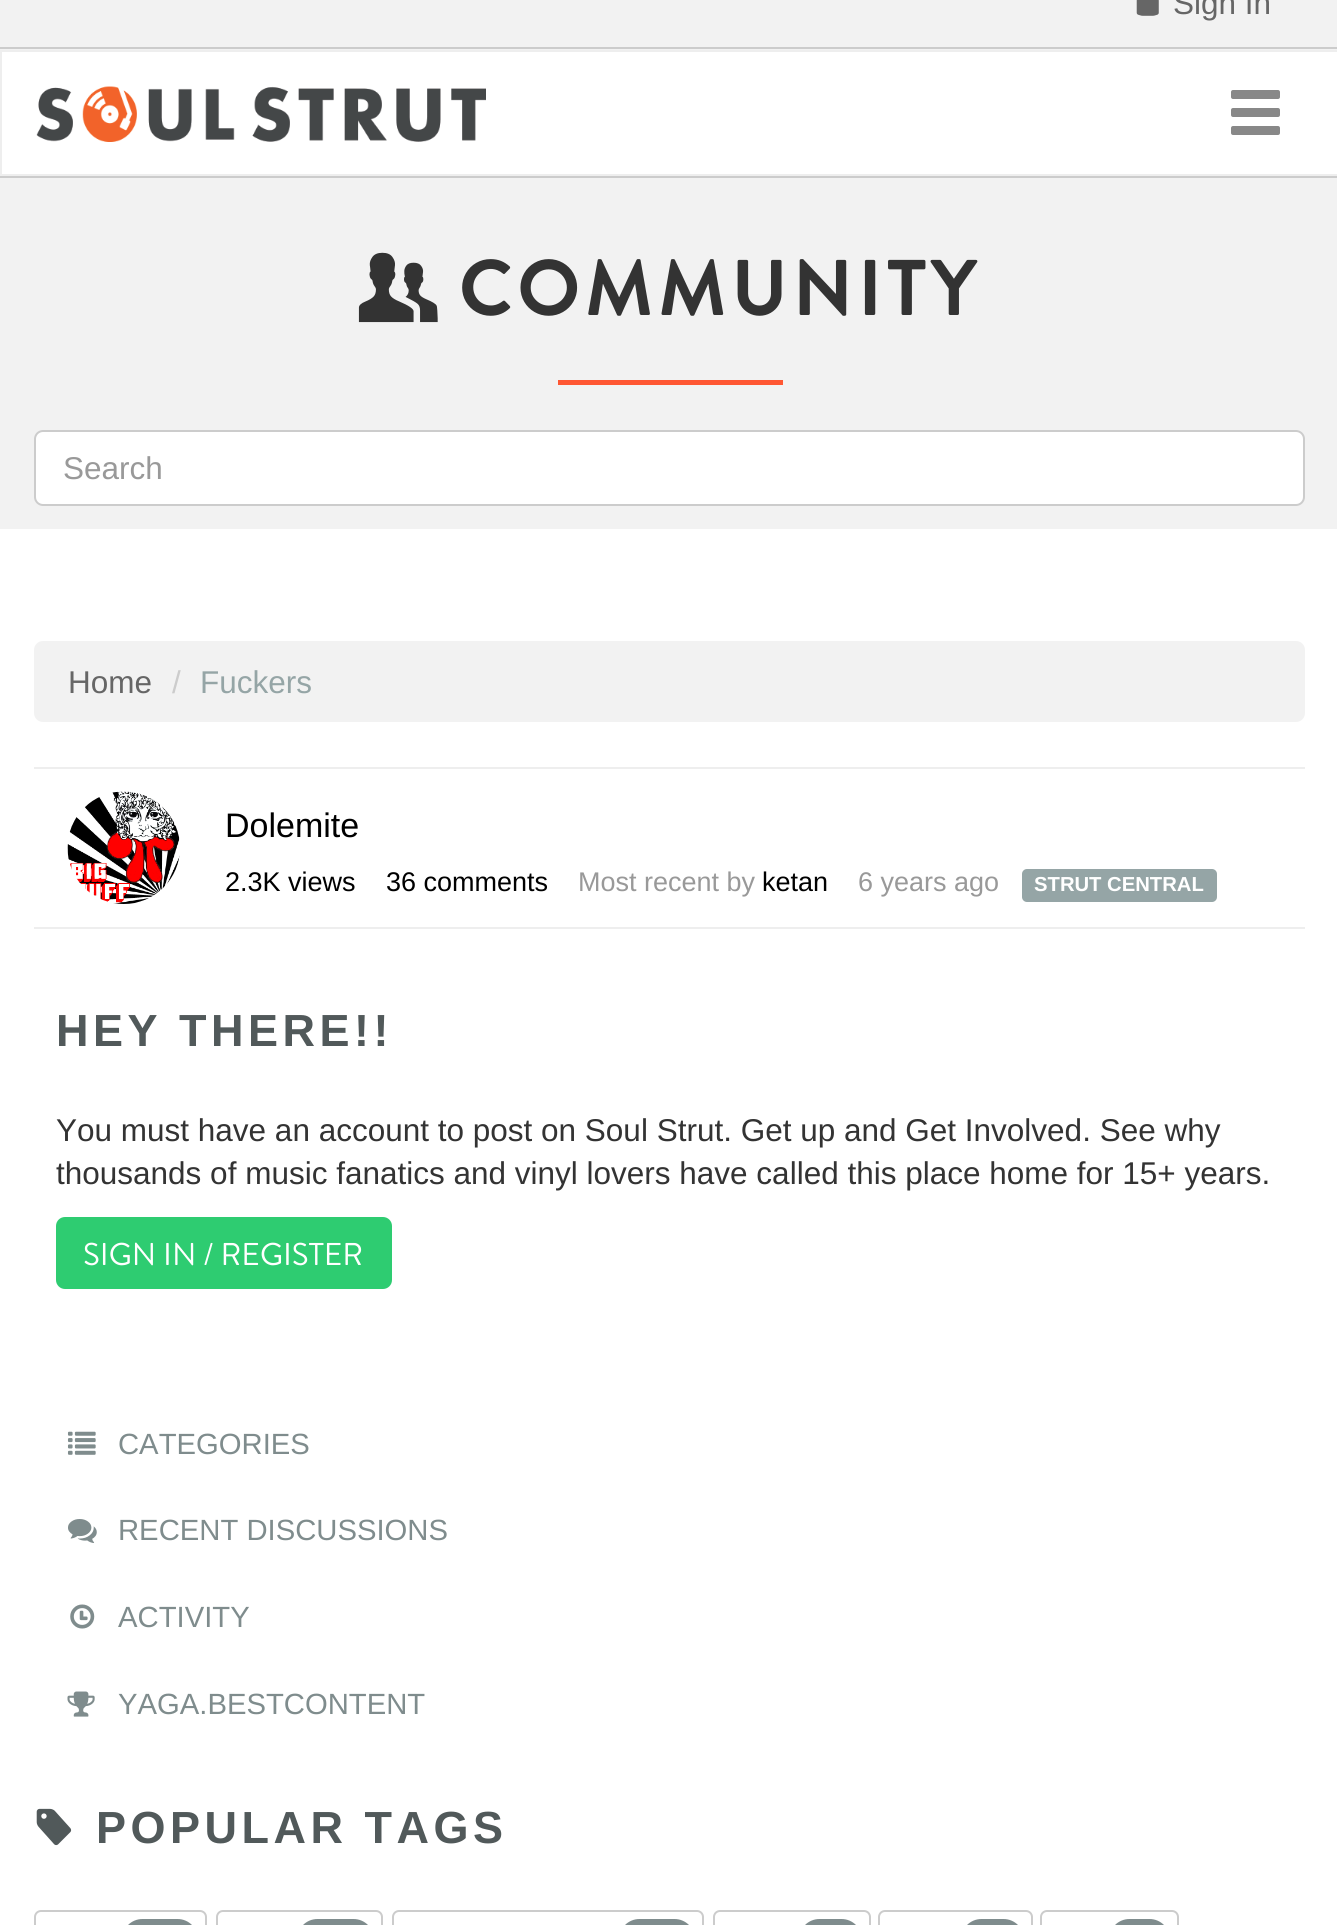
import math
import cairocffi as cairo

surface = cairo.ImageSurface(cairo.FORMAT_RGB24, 1337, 1925)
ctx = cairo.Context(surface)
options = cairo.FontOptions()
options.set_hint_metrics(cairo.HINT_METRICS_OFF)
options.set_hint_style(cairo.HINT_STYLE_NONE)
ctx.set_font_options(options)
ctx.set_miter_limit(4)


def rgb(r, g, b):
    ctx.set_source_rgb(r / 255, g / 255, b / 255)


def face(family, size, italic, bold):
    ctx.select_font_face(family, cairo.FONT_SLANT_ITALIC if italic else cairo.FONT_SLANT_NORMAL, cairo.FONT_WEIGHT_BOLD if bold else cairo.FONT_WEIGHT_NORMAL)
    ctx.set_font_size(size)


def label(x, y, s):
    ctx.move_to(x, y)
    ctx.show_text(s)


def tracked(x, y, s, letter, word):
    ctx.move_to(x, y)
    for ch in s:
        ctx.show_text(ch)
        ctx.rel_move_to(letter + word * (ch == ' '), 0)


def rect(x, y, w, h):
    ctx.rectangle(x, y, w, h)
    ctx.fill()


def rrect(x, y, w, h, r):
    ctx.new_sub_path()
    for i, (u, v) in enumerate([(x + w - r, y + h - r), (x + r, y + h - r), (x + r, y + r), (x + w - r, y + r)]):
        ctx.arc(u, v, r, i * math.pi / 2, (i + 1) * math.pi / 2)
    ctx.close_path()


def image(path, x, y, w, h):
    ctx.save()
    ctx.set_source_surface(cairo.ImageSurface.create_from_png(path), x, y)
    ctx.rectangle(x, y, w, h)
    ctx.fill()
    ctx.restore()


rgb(255, 255, 255)
ctx.paint()
rgb(242, 242, 242)
rect(0, 0, 1337, 50)
rgb(204, 204, 204)
rect(0, 47, 1337, 2)
image('image0.png', 1136, 0, 23, 16)
face('Liberation Sans', 31.5, 0, 0)
rgb(102, 102, 102)
label(1173, 14, 'Sign In')
ctx.rectangle(1, 51, 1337, 124)
rgb(238, 238, 238)
ctx.stroke()
image('image1.png', 36, 86, 450, 56)
rgb(136, 136, 136)
rrect(1231, 90, 49, 9, 2)
ctx.fill()
rrect(1231, 108, 49, 9, 2)
ctx.fill()
rrect(1231, 126, 49, 9, 2)
ctx.fill()
rgb(242, 242, 242)
rect(0, 178, 1337, 351)
rgb(204, 204, 204)
rect(0, 176, 1337, 2)
image('image2.png', 358, 252, 80, 71)
face('Brandon Grotesque', 78.75, 0, 1)
rgb(51, 51, 51)
tracked(459, 315, 'COMMUNITY', 4.5, 0)
rgb(255, 87, 51)
rect(558, 380, 225, 5)
rgb(255, 255, 255)
rrect(35, 431, 1269, 74, 8)
ctx.fill_preserve()
rgb(204, 204, 204)
ctx.stroke()
face('Liberation Sans', 31.5, 0, 0)
rgb(153, 153, 153)
label(63, 479, 'Search')
rgb(242, 242, 242)
rrect(34, 641, 1271, 81, 9)
ctx.fill()
rgb(102, 102, 102)
label(68, 693, 'Home')
rgb(204, 204, 204)
label(172, 693, '/')
rgb(149, 165, 166)
label(200, 693, 'Fuckers')
rgb(238, 238, 238)
rect(34, 767, 1271, 2)
rect(34, 927, 1271, 2)
image('image3.png', 67, 791, 113, 113)
face('Liberation Sans', 34, 0, 0)
rgb(0, 0, 0)
label(225, 837, 'Dolemite')
face('Liberation Sans', 27, 0, 0)
label(225, 891, '2.3K views')
label(386, 891, '36 comments')
rgb(153, 153, 153)
label(578, 891, 'Most recent by')
rgb(0, 0, 0)
label(762, 891, 'ketan')
rgb(153, 153, 153)
label(858, 891, '6 years ago')
rgb(149, 165, 166)
rrect(1022, 869, 195, 33, 5)
ctx.fill()
face('Liberation Sans', 20.25, 0, 1)
rgb(255, 255, 255)
label(1034, 891, 'STRUT CENTRAL')
face('Liberation Sans', 45, 0, 1)
rgb(81, 89, 90)
tracked(56, 1046, 'HEY THERE!!', 4.5, 0)
face('Liberation Sans', 31.5, 0, 0)
rgb(51, 51, 51)
label(56, 1141, 'You must have an account to post on Soul Strut. Get up and Get Involved. See why')
label(56, 1184, 'thousands of music fanatics and vinyl lovers have called this place home for 15+ years.')
rgb(46, 204, 113)
rrect(56, 1217, 336, 72, 9)
ctx.fill()
face('Brandon Grotesque', 31.5, 0, 0)
rgb(255, 255, 255)
label(83, 1265, 'SIGN IN / REGISTER')
image('image4.png', 67, 1431, 29, 24)
face('Liberation Sans', 29.25, 0, 0)
rgb(127, 140, 141)
label(118, 1454, 'CATEGORIES')
image('image5.png', 68, 1519, 29, 24)
label(118, 1540, 'RECENT DISCUSSIONS')
image('image6.png', 70, 1604, 25, 25)
label(118, 1627, 'ACTIVITY')
image('image7.png', 67, 1691, 28, 26)
label(118, 1714, 'YAGA.BESTCONTENT')
image('image8.png', 36, 1808, 36, 38)
face('Liberation Sans', 45, 0, 1)
rgb(81, 89, 90)
tracked(96, 1843, 'POPULAR TAGS', 4.5, 0)
rrect(35, 1911, 171, 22, 6)
rgb(204, 204, 204)
ctx.stroke()
rgb(127, 140, 141)
rrect(122, 1919, 76, 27, 20.5)
ctx.fill()
rrect(217, 1911, 165, 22, 6)
rgb(204, 204, 204)
ctx.stroke()
rgb(127, 140, 141)
rrect(297, 1919, 77, 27, 20.5)
ctx.fill()
rrect(393, 1911, 310, 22, 6)
rgb(204, 204, 204)
ctx.stroke()
rgb(127, 140, 141)
rrect(619, 1919, 76, 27, 20.5)
ctx.fill()
rrect(714, 1911, 156, 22, 6)
rgb(204, 204, 204)
ctx.stroke()
rgb(127, 140, 141)
rrect(799, 1919, 63, 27, 20.5)
ctx.fill()
rrect(879, 1911, 153, 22, 6)
rgb(204, 204, 204)
ctx.stroke()
rgb(127, 140, 141)
rrect(961, 1919, 63, 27, 20.5)
ctx.fill()
rrect(1041, 1911, 137, 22, 6)
rgb(204, 204, 204)
ctx.stroke()
rgb(127, 140, 141)
rrect(1109, 1919, 61, 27, 20.5)
ctx.fill()
surface.write_to_png('render.png')
